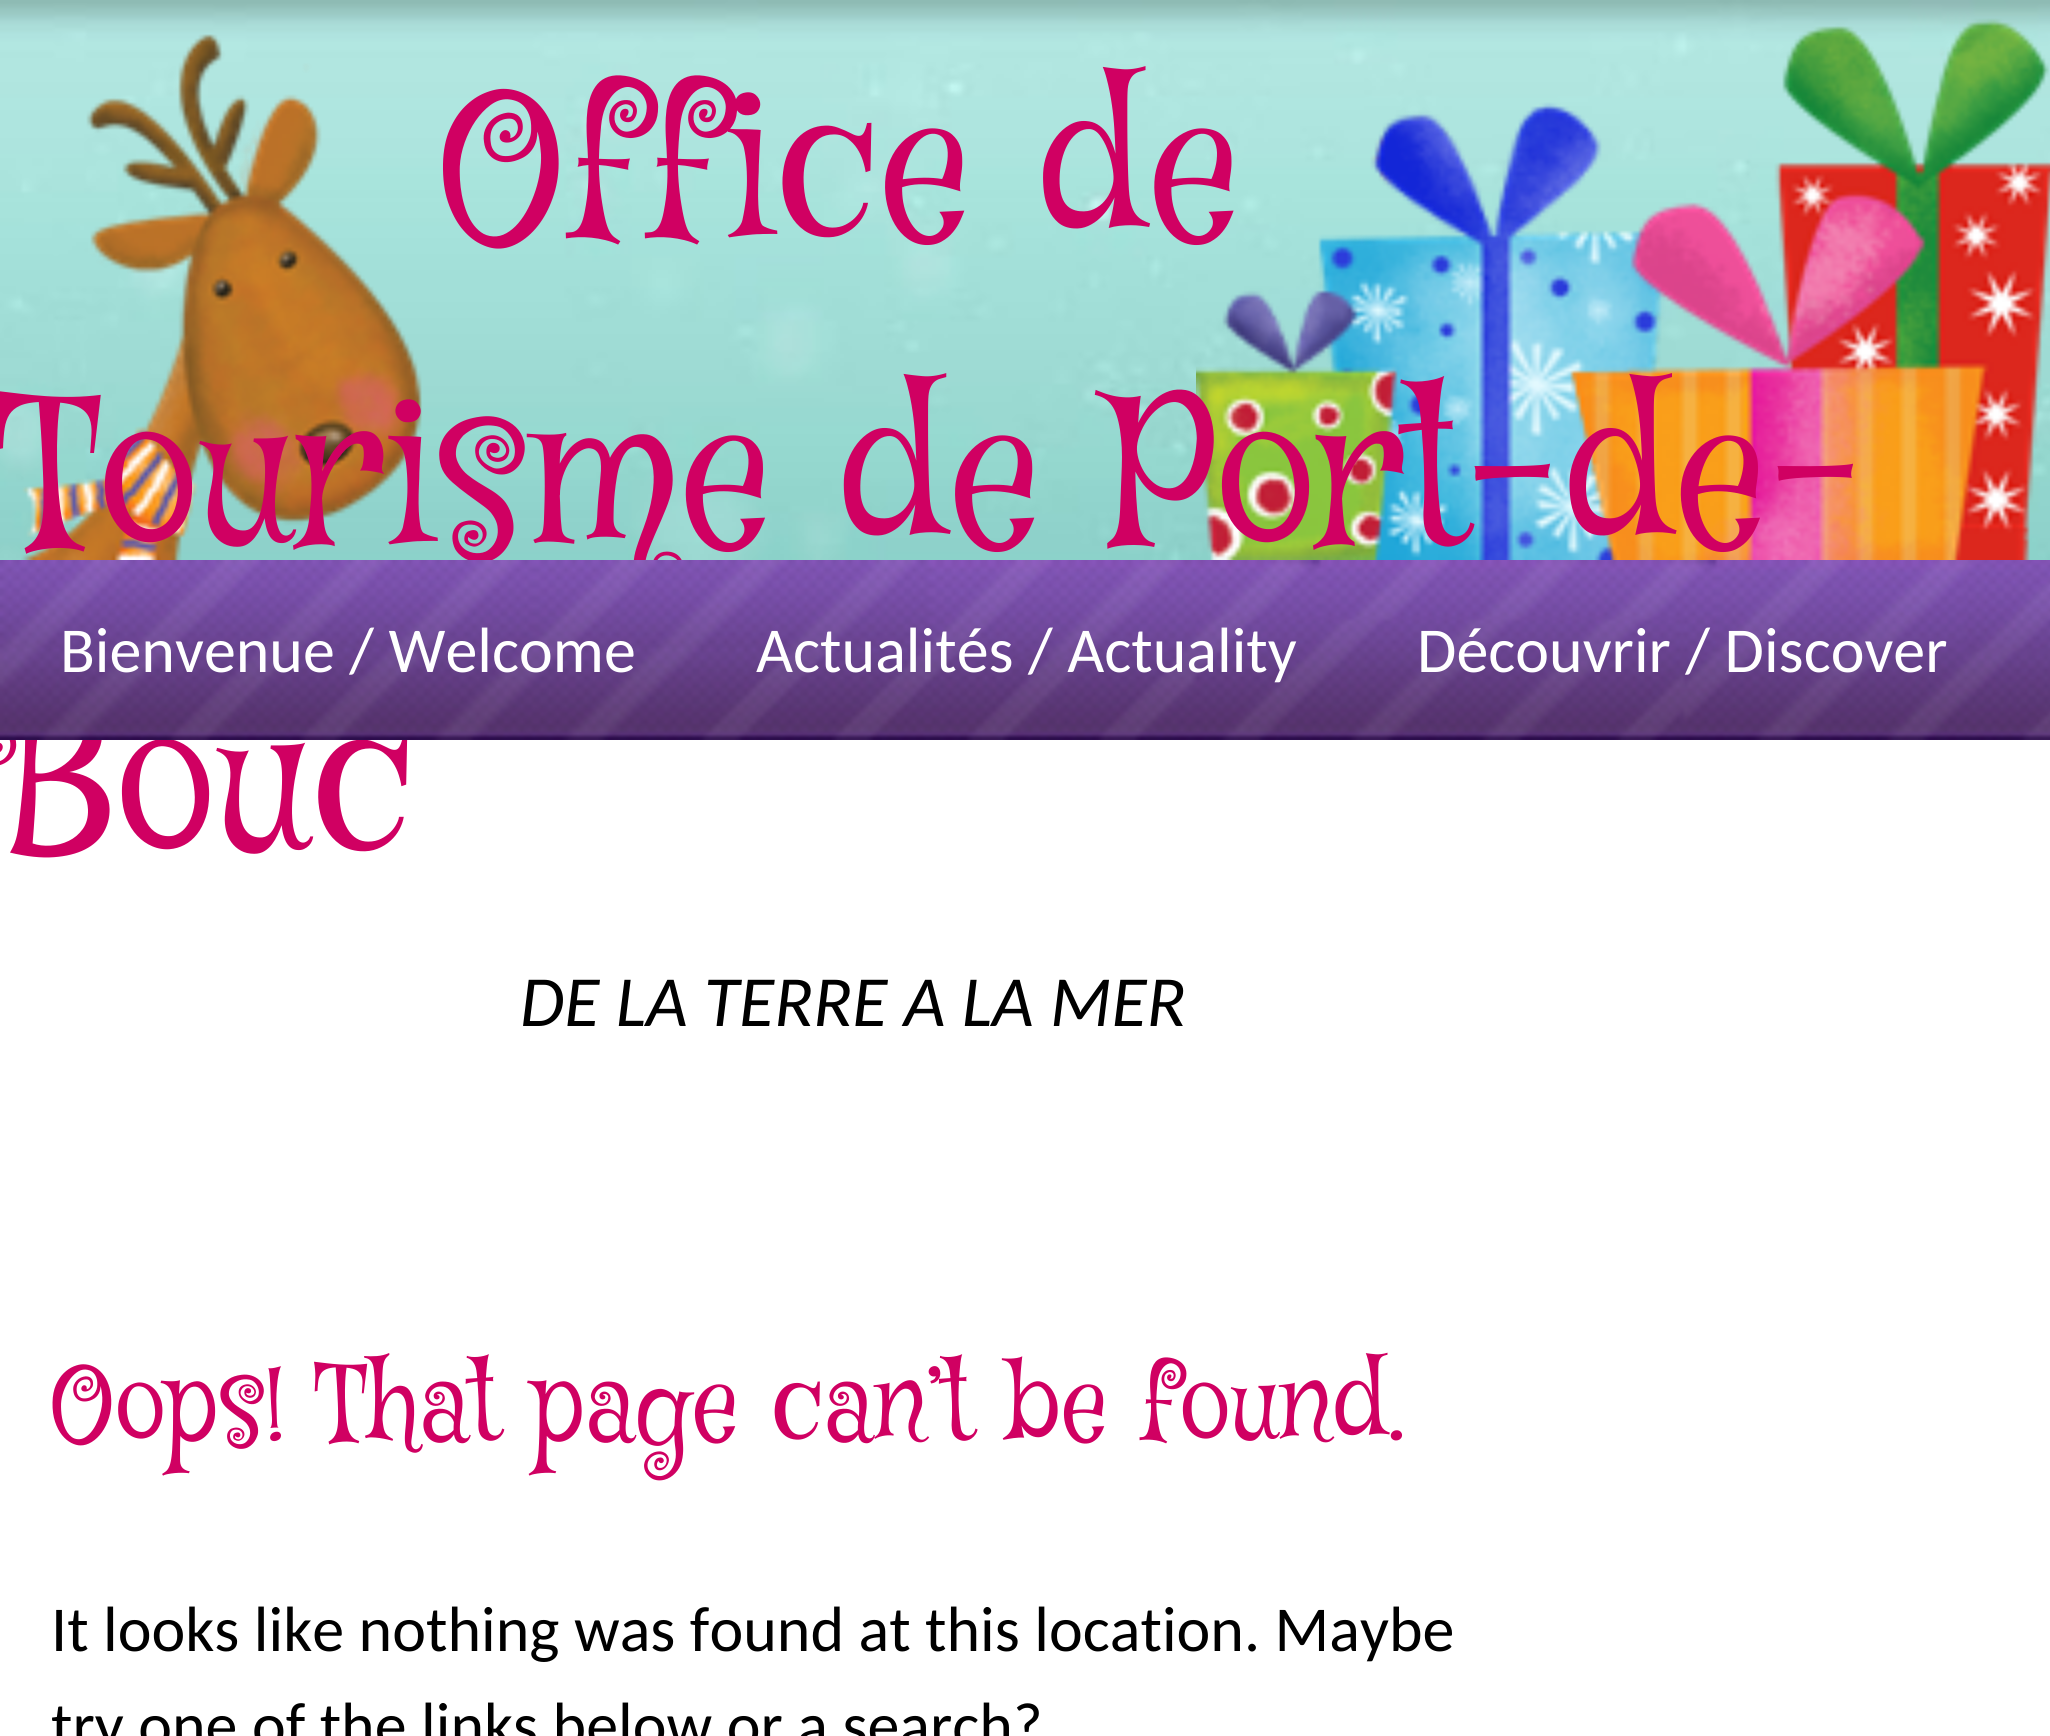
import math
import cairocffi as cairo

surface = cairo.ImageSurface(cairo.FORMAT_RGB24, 2050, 1736)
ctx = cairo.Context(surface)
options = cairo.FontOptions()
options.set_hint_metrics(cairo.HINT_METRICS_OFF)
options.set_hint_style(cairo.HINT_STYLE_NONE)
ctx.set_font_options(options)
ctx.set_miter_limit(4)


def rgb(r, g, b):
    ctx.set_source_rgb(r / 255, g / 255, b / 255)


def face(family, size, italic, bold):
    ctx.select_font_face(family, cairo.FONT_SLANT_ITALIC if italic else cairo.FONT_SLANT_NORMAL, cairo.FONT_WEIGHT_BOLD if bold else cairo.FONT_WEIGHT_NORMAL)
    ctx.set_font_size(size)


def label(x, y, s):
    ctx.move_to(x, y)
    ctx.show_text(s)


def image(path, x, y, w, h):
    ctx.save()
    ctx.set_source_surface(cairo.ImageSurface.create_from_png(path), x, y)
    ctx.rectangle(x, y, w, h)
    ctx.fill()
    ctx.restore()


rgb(255, 255, 255)
ctx.paint()
image('image0.png', 0, 0, 2050, 560)
image('image1.png', 1196, 18, 854, 542)
image('image2.png', 21, 34, 401, 526)
face('Mystery Quest', 204.75, 0, 0)
rgb(208, 0, 98)
label(440, 236, 'Office de')
label(0, 543, 'Tourisme de Port-de-')
label(0, 850, 'Bouc')
face('Carlito', 72, 1, 0)
rgb(0, 0, 0)
label(520, 1026, 'DE LA TERRE A LA MER')
image('image3.png', 0, 560, 2050, 180)
face('Carlito', 64, 0, 0)
rgb(255, 255, 255)
label(60, 672, 'Bienvenue / Welcome')
label(756, 672, 'Actualités / Actuality')
label(1417, 672, 'Découvrir / Discover')
face('Mystery Quest', 104, 0, 0)
rgb(208, 0, 98)
label(51, 1439, 'Oops! That page can’t be found.')
face('Carlito', 64, 0, 0)
rgb(0, 0, 0)
label(51, 1651, 'It looks like nothing was found at this location. Maybe')
label(51, 1747, 'try one of the links below or a search?')
surface.write_to_png('render.png')
